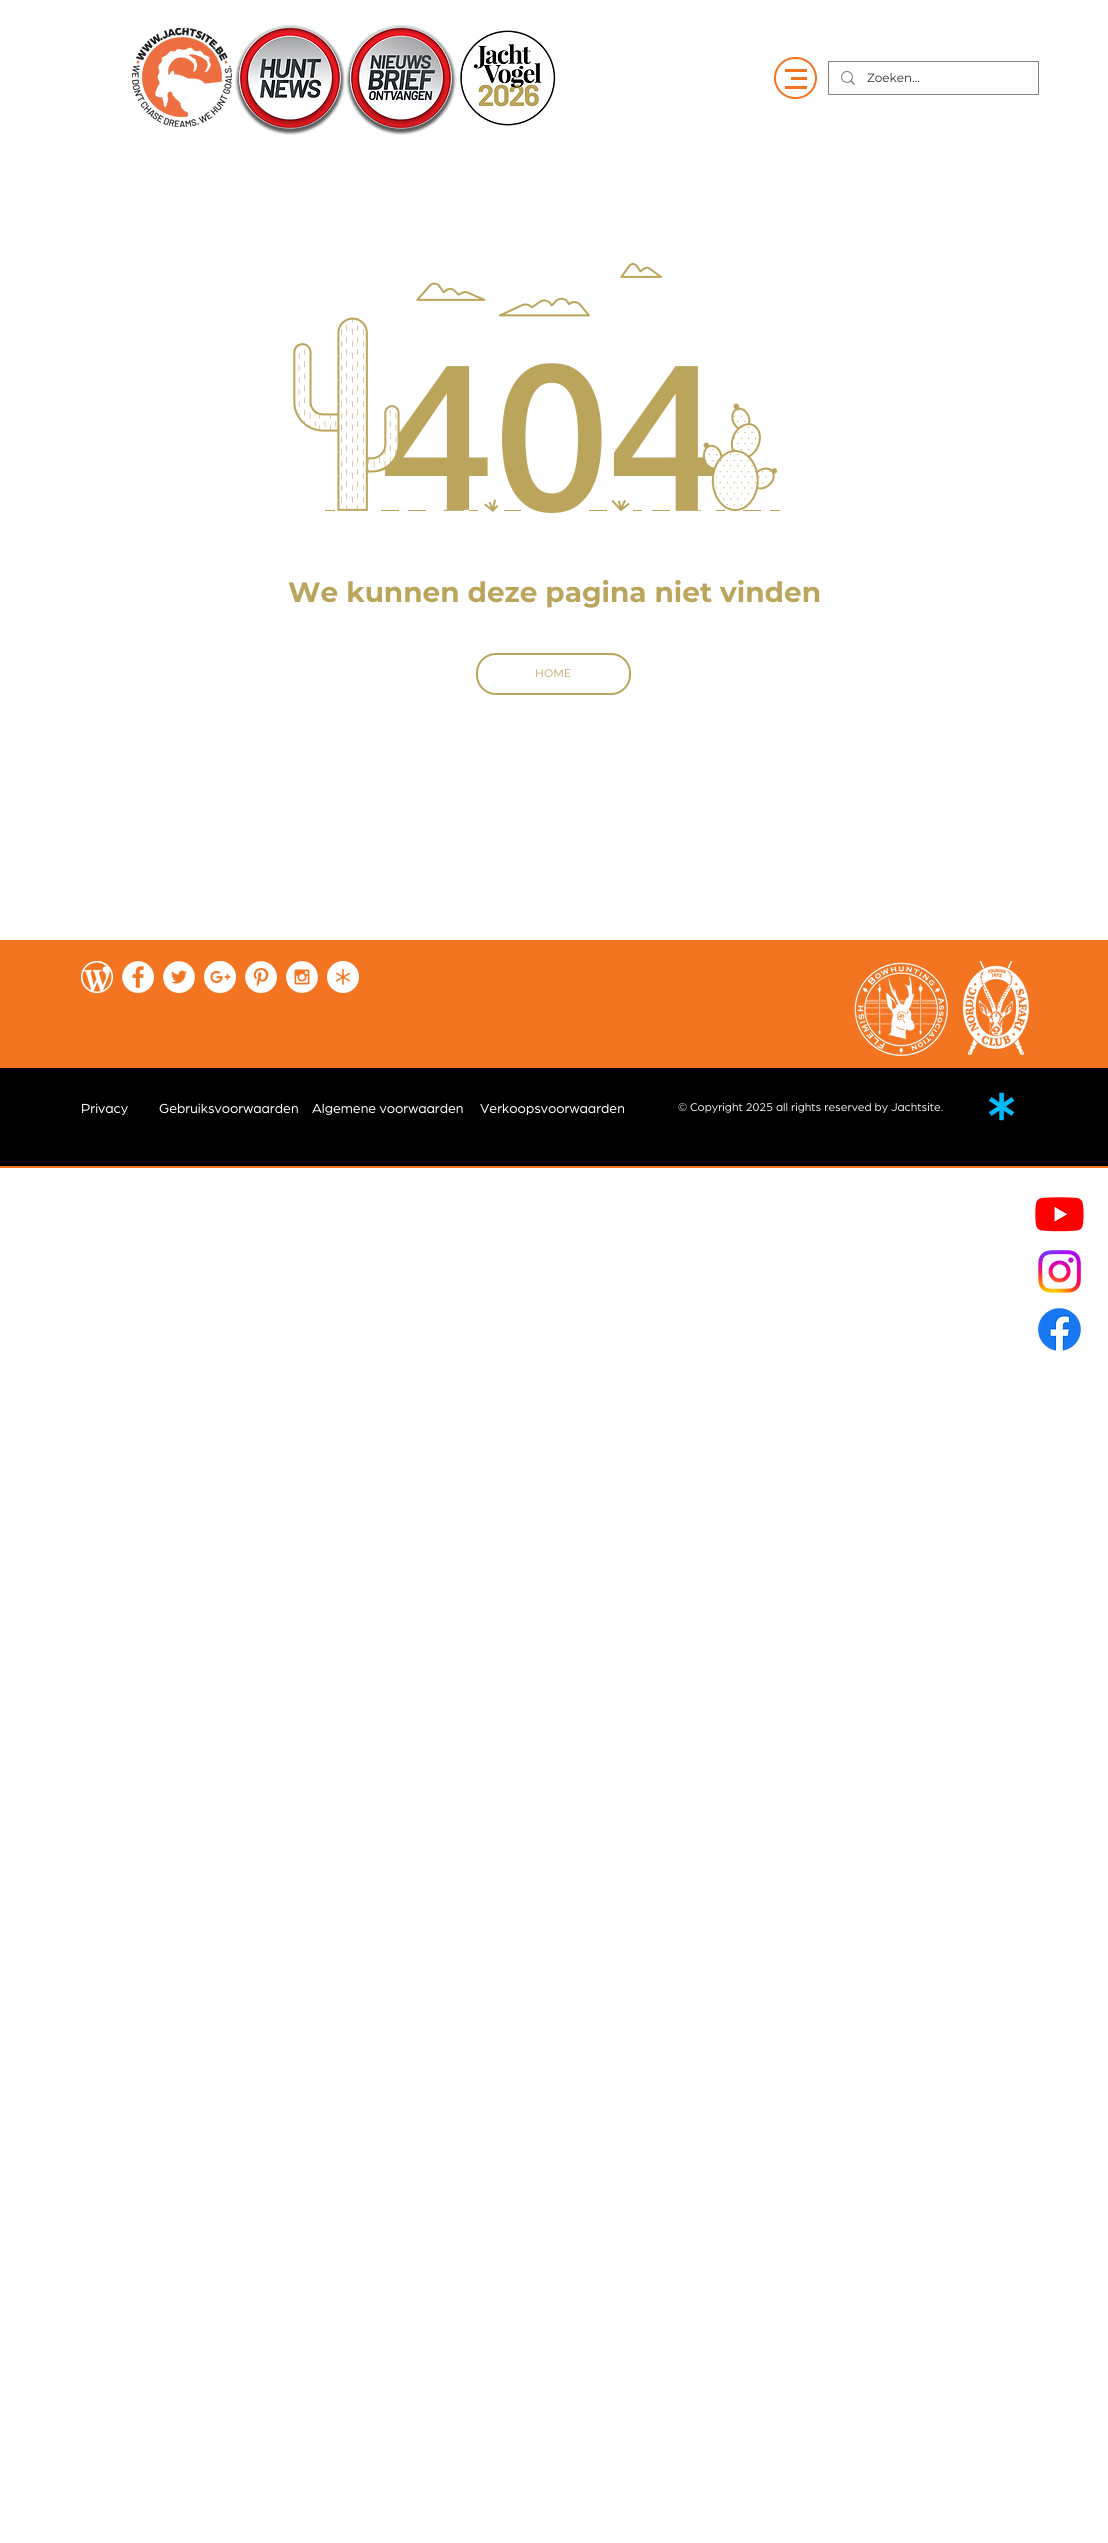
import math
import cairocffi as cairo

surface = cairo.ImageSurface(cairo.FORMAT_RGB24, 1108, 2543)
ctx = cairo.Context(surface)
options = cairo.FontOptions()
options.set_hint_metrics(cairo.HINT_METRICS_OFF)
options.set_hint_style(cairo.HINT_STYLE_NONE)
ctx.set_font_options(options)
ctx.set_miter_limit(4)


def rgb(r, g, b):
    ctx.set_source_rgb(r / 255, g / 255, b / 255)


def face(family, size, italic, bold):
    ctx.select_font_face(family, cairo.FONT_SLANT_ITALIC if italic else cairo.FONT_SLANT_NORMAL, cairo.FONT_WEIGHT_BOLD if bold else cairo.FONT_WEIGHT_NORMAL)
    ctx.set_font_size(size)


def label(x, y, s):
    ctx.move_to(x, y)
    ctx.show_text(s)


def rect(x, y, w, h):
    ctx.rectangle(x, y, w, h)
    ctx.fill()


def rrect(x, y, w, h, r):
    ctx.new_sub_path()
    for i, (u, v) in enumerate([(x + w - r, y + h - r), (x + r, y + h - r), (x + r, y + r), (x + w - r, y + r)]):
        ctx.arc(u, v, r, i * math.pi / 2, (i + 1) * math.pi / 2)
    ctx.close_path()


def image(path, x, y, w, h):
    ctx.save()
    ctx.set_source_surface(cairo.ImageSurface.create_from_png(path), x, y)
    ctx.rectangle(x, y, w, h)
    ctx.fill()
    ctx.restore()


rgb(255, 255, 255)
ctx.paint()
image('image0.png', 132, 28, 100, 99)
image('image1.png', 235, 24, 111, 111)
image('image2.png', 346, 24, 111, 111)
image('image3.png', 460, 30, 96, 96)
rrect(775, 58, 41, 40, 20)
rgb(243, 116, 33)
ctx.stroke()
rect(785, 69, 22, 3)
rect(791, 77, 16, 3)
rect(785, 86, 22, 3)
ctx.rectangle(828.5, 61.5, 210, 33)
rgb(130, 130, 130)
ctx.set_line_width(1)
ctx.stroke()
image('image4.png', 841, 71, 14, 14)
face('Montserrat', 12, 0, 0)
rgb(47, 46, 46)
label(867, 82, 'Zoeken...')
image('image5.png', 293, 263, 487, 250)
face('Montserrat', 28, 0, 1)
rgb(187, 164, 91)
label(288, 602, 'We kunnen deze pagina niet vinden')
rrect(477, 654, 153, 40, 19)
ctx.set_line_width(2)
ctx.stroke()
face('Montserrat', 11, 0, 0)
label(535, 677, 'HOME')
rgb(243, 116, 33)
rect(0, 940, 1108, 228)
image('image6.png', 81, 961, 32, 32)
image('image7.png', 122, 961, 32, 32)
image('image8.png', 163, 961, 32, 32)
image('image9.png', 204, 961, 32, 32)
image('image10.png', 245, 961, 32, 32)
image('image11.png', 286, 961, 32, 32)
image('image12.png', 327, 961, 32, 32)
image('image13.png', 854, 962, 94, 94)
image('image14.png', 962, 961, 67, 94)
rgb(0, 0, 0)
rect(0, 1068, 1108, 98)
face('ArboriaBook', 14, 0, 0)
rgb(255, 255, 255)
label(81, 1113, 'Privacy')
label(159, 1113, 'Gebruiksvoorwaarden')
label(312, 1113, 'Algemene voorwaarden')
label(480, 1113, 'Verkoopsvoorwaarden')
face('ArboriaBook', 12, 0, 0)
rgb(232, 232, 232)
label(678, 1111, '© Copyright 2025 all rights reserved by Jachtsite.')
image('image15.png', 989, 1092, 26, 29)
image('image16.png', 1035, 1197, 49, 35)
image('image17.png', 1038, 1250, 43, 43)
image('image18.png', 1038, 1308, 43, 43)
surface.write_to_png('render.png')
